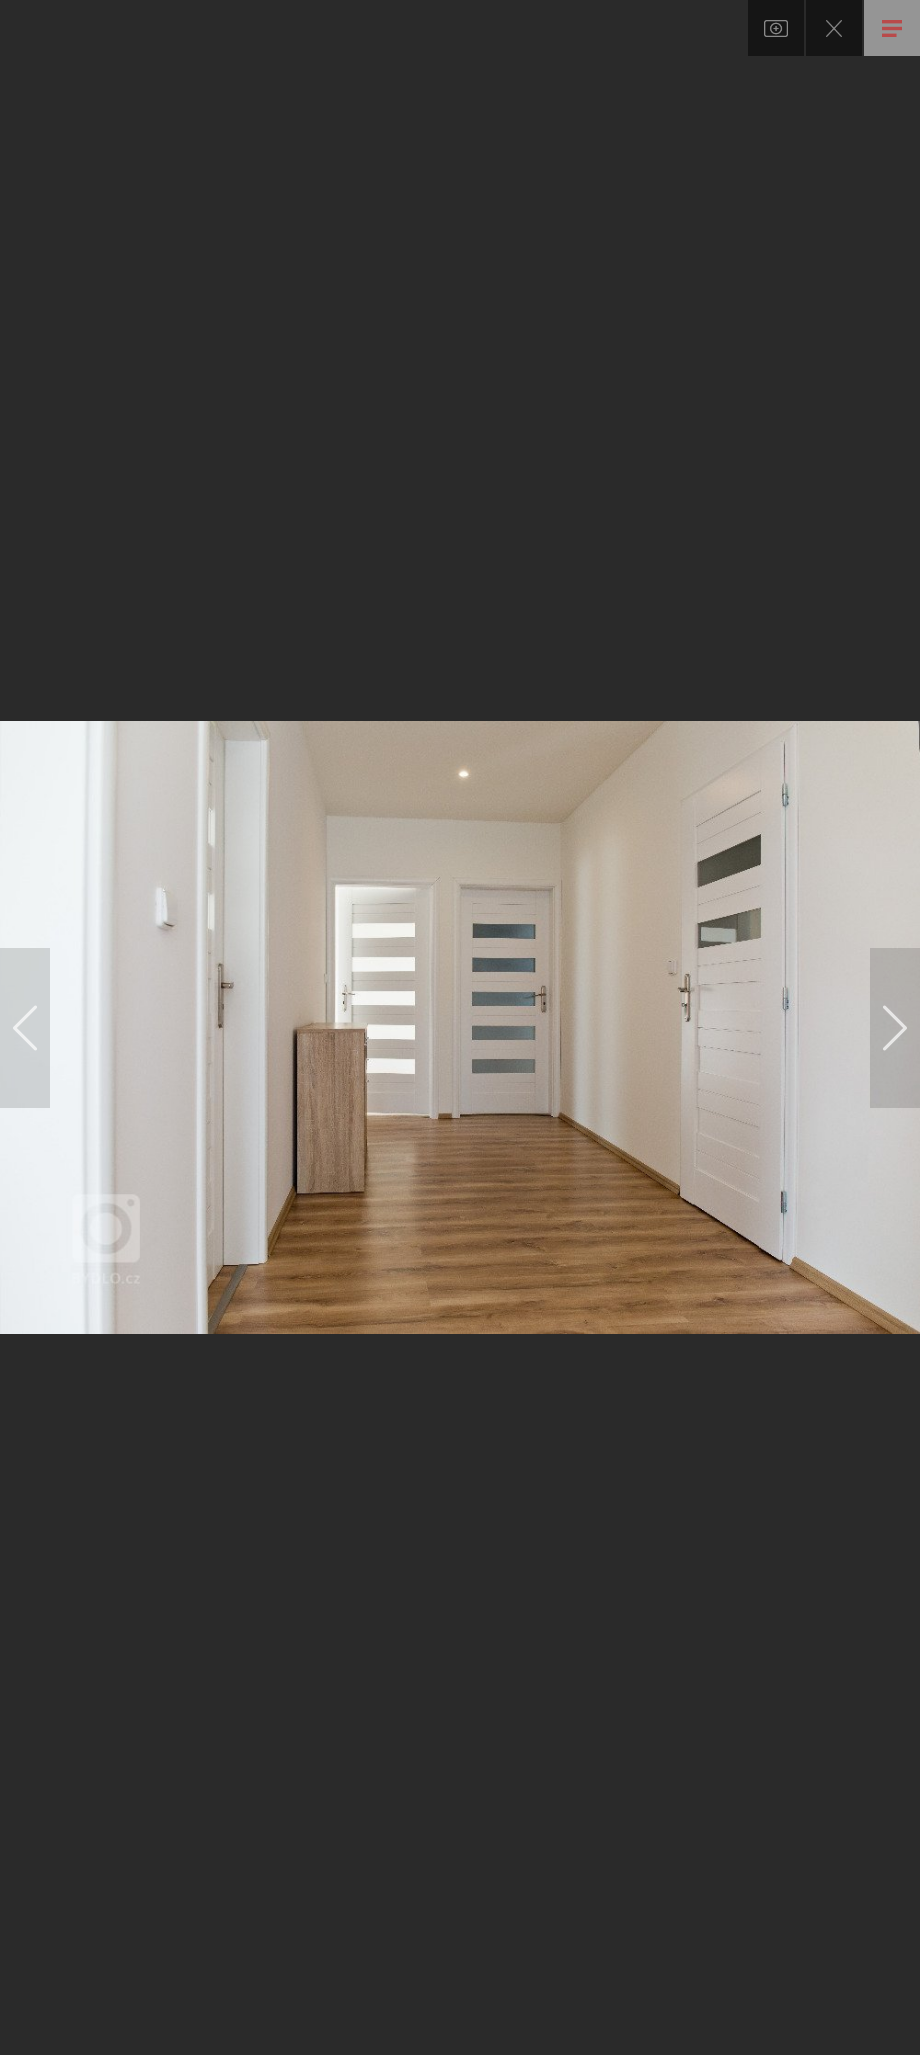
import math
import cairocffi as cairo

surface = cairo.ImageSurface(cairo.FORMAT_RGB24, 920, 2055)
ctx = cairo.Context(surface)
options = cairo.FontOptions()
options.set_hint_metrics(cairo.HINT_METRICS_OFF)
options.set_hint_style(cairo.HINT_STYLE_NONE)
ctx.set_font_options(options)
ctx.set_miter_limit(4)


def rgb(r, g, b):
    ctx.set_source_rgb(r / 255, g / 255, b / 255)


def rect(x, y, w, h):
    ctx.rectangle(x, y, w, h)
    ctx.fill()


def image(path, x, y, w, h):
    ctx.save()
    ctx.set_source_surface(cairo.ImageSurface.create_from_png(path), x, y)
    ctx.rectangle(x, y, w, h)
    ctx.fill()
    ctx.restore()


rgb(42, 42, 42)
ctx.paint()
rgb(21, 21, 21)
rect(748, 0, 56, 56)
image('image0.png', 764, 20, 24, 17)
rect(806, 0, 56, 56)
image('image1.png', 826, 20, 16, 17)
rgb(149, 149, 149)
rect(864, 0, 56, 56)
image('image2.png', 882, 20, 20, 17)
image('image3.png', 0, 721, 920, 613)
ctx.set_source_rgba(0, 0, 0, 0.14)
rect(0, 948, 50, 160)
image('image4.png', 13, 1005, 24, 46)
rect(870, 948, 50, 160)
image('image5.png', 883, 1005, 24, 46)
surface.write_to_png('render.png')
